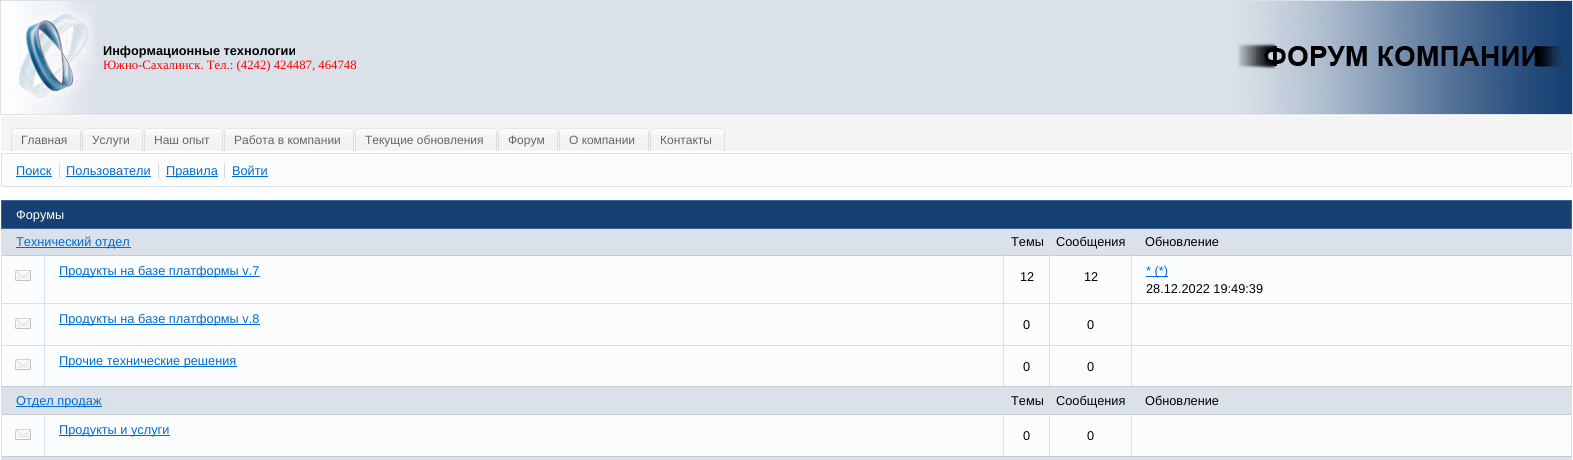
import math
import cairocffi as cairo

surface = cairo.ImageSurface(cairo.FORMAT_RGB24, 1573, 460)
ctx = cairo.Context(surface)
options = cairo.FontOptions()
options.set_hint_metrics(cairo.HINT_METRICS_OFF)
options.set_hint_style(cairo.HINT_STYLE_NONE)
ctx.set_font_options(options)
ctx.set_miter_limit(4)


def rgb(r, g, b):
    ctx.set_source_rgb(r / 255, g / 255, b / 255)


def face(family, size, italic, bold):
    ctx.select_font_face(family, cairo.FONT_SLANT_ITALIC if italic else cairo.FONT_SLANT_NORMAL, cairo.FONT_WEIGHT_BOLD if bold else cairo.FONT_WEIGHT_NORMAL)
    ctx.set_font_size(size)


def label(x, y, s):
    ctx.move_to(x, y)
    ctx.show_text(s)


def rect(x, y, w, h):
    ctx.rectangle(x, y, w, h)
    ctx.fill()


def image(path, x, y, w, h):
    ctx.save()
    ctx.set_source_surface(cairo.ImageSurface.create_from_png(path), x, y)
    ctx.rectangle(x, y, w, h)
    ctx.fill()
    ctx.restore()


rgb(255, 255, 255)
ctx.paint()
rgb(218, 225, 233)
rect(0, 0, 1573, 115)
image('image0.png', 1, 1, 96, 113)
face('Liberation Sans', 12.75, 0, 1)
rgb(0, 0, 0)
label(103, 55, 'Информационные технологии')
face('Liberation Serif', 12.75, 0, 0)
rgb(255, 0, 0)
label(103, 69, 'Южно-Сахалинск. Тел.: (4242) 424487, 464748')
image('image1.png', 1237, 1, 335, 113)
rgb(244, 244, 244)
rect(1, 116, 1571, 35)
image('image2.png', 11, 128, 4, 23)
image('image3.png', 15, 128, 66, 23)
face('Liberation Sans', 12, 0, 0)
rgb(102, 102, 102)
label(21, 144, 'Главная')
image('image2.png', 82, 128, 4, 23)
image('image4.png', 86, 128, 57, 23)
label(92, 144, 'Услуги')
image('image2.png', 144, 128, 4, 23)
image('image5.png', 148, 128, 75, 23)
label(154, 144, 'Наш опыт')
image('image2.png', 224, 128, 4, 23)
image('image6.png', 228, 128, 126, 23)
label(234, 144, 'Работа в компании')
image('image2.png', 355, 128, 4, 23)
image('image7.png', 359, 128, 138, 23)
label(365, 144, 'Текущие обновления')
image('image2.png', 498, 128, 4, 23)
image('image8.png', 502, 128, 56, 23)
label(508, 144, 'Форум')
image('image2.png', 559, 128, 4, 23)
image('image9.png', 563, 128, 86, 23)
label(569, 144, 'О компании')
image('image2.png', 650, 128, 4, 23)
image('image10.png', 654, 128, 71, 23)
label(660, 144, 'Контакты')
rgb(251, 252, 253)
ctx.rectangle(1.5, 153.5, 1570, 33)
ctx.fill_preserve()
rgb(218, 224, 231)
ctx.set_line_width(1)
ctx.stroke()
face('Liberation Sans', 12.75, 0, 0)
rgb(0, 108, 209)
label(16, 175, 'Поиск')
rgb(212, 218, 227)
rect(59, 163, 1, 15)
rgb(0, 108, 209)
rect(16, 176, 36, 1)
label(66, 175, 'Пользователи')
rgb(212, 218, 227)
rect(158, 163, 1, 15)
rgb(0, 108, 209)
rect(66, 176, 85, 1)
rect(166, 176, 52, 1)
label(166, 175, 'Правила')
rgb(212, 218, 227)
rect(224, 163, 1, 15)
rgb(0, 108, 209)
label(232, 175, 'Войти')
rect(232, 176, 36, 1)
rgb(22, 63, 114)
ctx.rectangle(1.5, 200.5, 1570, 28)
ctx.fill_preserve()
rgb(64, 99, 144)
ctx.stroke()
rgb(255, 255, 255)
label(16, 219, 'Форумы')
rgb(218, 225, 233)
rect(2, 229, 1569, 26)
rgb(218, 224, 231)
rect(1, 229, 1, 26)
rgb(0, 108, 209)
rect(16, 247, 115, 1)
label(16, 246, 'Технический отдел')
rgb(0, 0, 0)
label(1011, 246, 'Темы')
label(1056, 246, 'Сообщения')
rgb(218, 224, 231)
rect(1571, 229, 1, 26)
rgb(0, 0, 0)
label(1145, 246, 'Обновление')
rgb(251, 252, 253)
rect(2, 256, 42, 47)
rgb(196, 204, 214)
rect(1, 255, 1571, 1)
rgb(218, 224, 231)
rect(44, 255, 1, 132)
rect(1, 303, 44, 1)
rect(1, 255, 1, 49)
image('image11.png', 15, 270, 16, 11)
rgb(251, 252, 253)
rect(45, 256, 958, 47)
rgb(218, 224, 231)
rect(1003, 255, 1, 132)
rect(45, 303, 959, 1)
rgb(0, 108, 209)
rect(59, 276, 201, 1)
label(59, 275, 'Продукты на базе платформы v.7')
rgb(251, 252, 253)
rect(1004, 256, 45, 47)
rgb(218, 224, 231)
rect(1049, 255, 1, 132)
rect(1004, 303, 46, 1)
rgb(0, 0, 0)
label(1020, 281, '12')
rgb(251, 252, 253)
rect(1050, 256, 81, 47)
rgb(218, 224, 231)
rect(1131, 255, 1, 132)
rect(1050, 303, 82, 1)
rgb(0, 0, 0)
label(1084, 281, '12')
rgb(251, 252, 253)
rect(1132, 256, 439, 47)
rgb(218, 224, 231)
rect(1571, 255, 1, 159)
rect(1132, 303, 440, 1)
rgb(0, 108, 209)
rect(1146, 276, 22, 1)
label(1146, 275, '* (*)')
rgb(0, 0, 0)
label(1146, 293, '28.12.2022 19:49:39')
rgb(251, 252, 253)
rect(2, 304, 42, 41)
rgb(218, 224, 231)
rect(1, 345, 1571, 1)
rect(1, 304, 1, 42)
image('image11.png', 15, 318, 16, 11)
rgb(251, 252, 253)
rect(45, 304, 958, 41)
rgb(0, 108, 209)
rect(59, 324, 201, 1)
label(59, 323, 'Продукты на базе платформы v.8')
rgb(251, 252, 253)
rect(1004, 304, 45, 41)
rgb(0, 0, 0)
label(1023, 329, '0')
rgb(251, 252, 253)
rect(1050, 304, 81, 41)
rgb(0, 0, 0)
label(1087, 329, '0')
rgb(251, 252, 253)
rect(1132, 304, 439, 41)
rect(2, 346, 42, 40)
rgb(196, 204, 214)
rect(1, 386, 1571, 1)
rgb(218, 224, 231)
rect(1, 346, 1, 68)
image('image11.png', 15, 359, 16, 11)
rgb(251, 252, 253)
rect(45, 346, 958, 40)
rgb(0, 108, 209)
rect(59, 366, 178, 1)
label(59, 365, 'Прочие технические решения')
rgb(251, 252, 253)
rect(1004, 346, 45, 40)
rgb(0, 0, 0)
label(1023, 371, '0')
rgb(251, 252, 253)
rect(1050, 346, 81, 40)
rgb(0, 0, 0)
label(1087, 371, '0')
rgb(251, 252, 253)
rect(1132, 346, 439, 40)
rgb(218, 225, 233)
rect(2, 387, 1569, 27)
rgb(0, 108, 209)
rect(16, 406, 86, 1)
label(16, 405, 'Отдел продаж')
rgb(0, 0, 0)
label(1011, 405, 'Темы')
label(1056, 405, 'Сообщения')
label(1145, 405, 'Обновление')
rgb(251, 252, 253)
rect(2, 415, 42, 41)
rgb(196, 204, 214)
rect(1, 414, 1571, 1)
rgb(218, 224, 231)
rect(44, 414, 1, 43)
rgb(196, 204, 214)
rect(1, 456, 44, 1)
rgb(218, 224, 231)
rect(1, 414, 1, 43)
image('image11.png', 15, 429, 16, 11)
rgb(251, 252, 253)
rect(45, 415, 958, 41)
rgb(218, 224, 231)
rect(1003, 414, 1, 43)
rgb(196, 204, 214)
rect(45, 456, 959, 1)
rgb(0, 108, 209)
rect(59, 435, 111, 1)
label(59, 434, 'Продукты и услуги')
rgb(251, 252, 253)
rect(1004, 415, 45, 41)
rgb(218, 224, 231)
rect(1049, 414, 1, 43)
rgb(196, 204, 214)
rect(1004, 456, 46, 1)
rgb(0, 0, 0)
label(1023, 440, '0')
rgb(251, 252, 253)
rect(1050, 415, 81, 41)
rgb(218, 224, 231)
rect(1131, 414, 1, 43)
rgb(196, 204, 214)
rect(1050, 456, 82, 1)
rgb(0, 0, 0)
label(1087, 440, '0')
rgb(251, 252, 253)
rect(1132, 415, 439, 41)
rgb(218, 224, 231)
rect(1571, 414, 1, 43)
rgb(196, 204, 214)
rect(1132, 456, 440, 1)
rgb(218, 225, 233)
rect(1, 457, 1571, 3)
surface.write_to_png('render.png')
